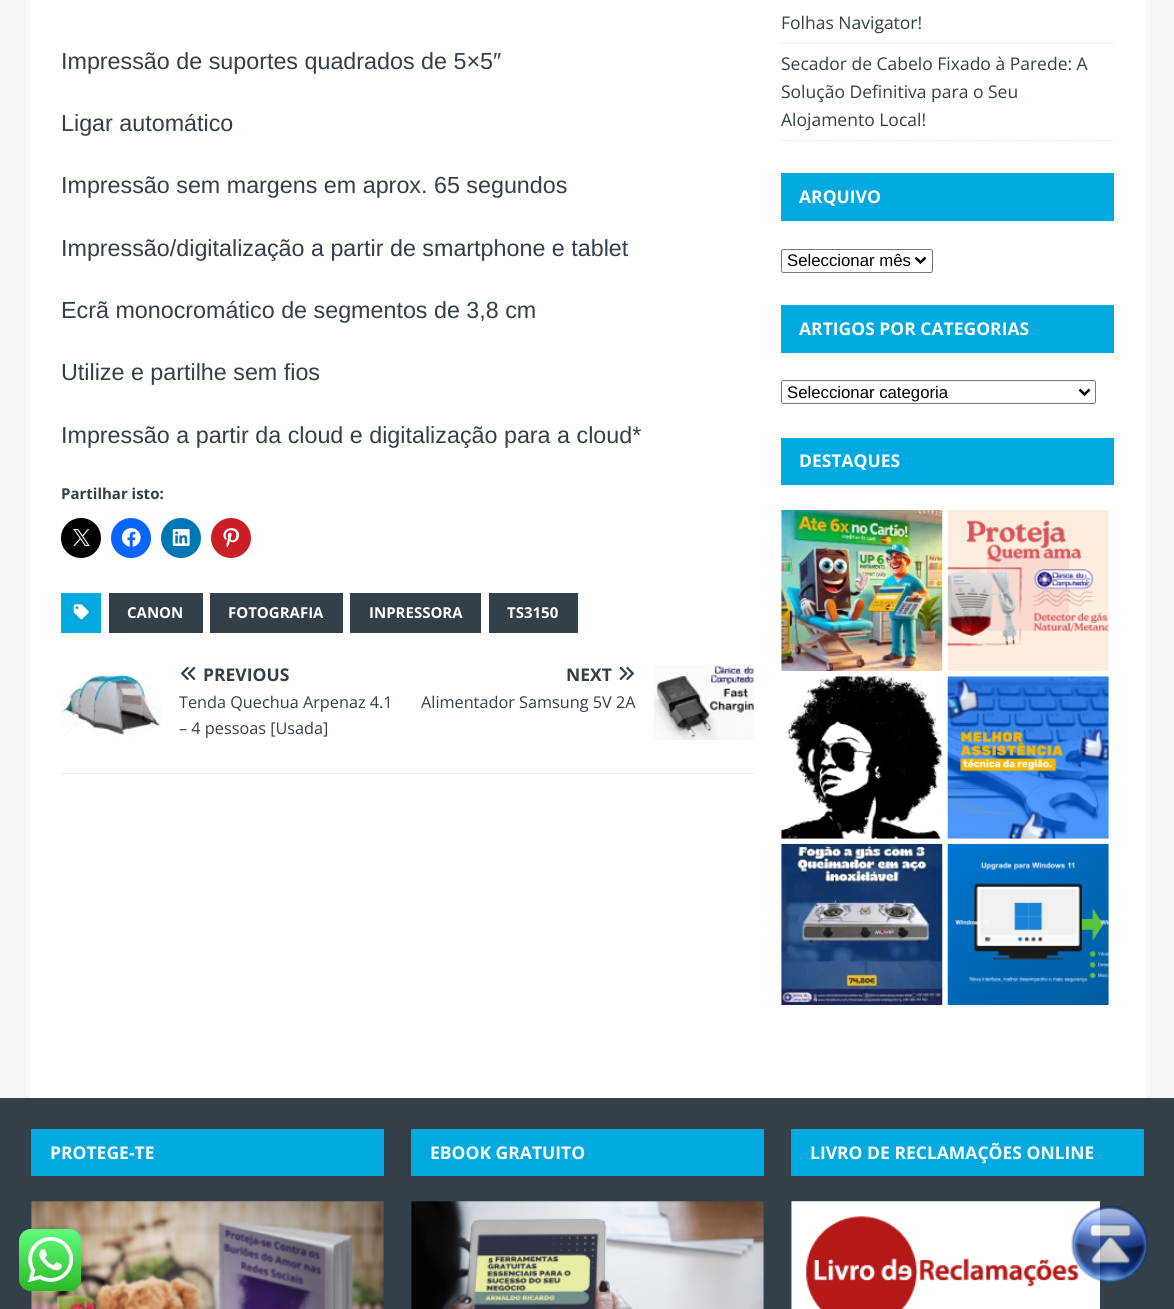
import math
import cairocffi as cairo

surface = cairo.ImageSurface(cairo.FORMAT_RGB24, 1174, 1309)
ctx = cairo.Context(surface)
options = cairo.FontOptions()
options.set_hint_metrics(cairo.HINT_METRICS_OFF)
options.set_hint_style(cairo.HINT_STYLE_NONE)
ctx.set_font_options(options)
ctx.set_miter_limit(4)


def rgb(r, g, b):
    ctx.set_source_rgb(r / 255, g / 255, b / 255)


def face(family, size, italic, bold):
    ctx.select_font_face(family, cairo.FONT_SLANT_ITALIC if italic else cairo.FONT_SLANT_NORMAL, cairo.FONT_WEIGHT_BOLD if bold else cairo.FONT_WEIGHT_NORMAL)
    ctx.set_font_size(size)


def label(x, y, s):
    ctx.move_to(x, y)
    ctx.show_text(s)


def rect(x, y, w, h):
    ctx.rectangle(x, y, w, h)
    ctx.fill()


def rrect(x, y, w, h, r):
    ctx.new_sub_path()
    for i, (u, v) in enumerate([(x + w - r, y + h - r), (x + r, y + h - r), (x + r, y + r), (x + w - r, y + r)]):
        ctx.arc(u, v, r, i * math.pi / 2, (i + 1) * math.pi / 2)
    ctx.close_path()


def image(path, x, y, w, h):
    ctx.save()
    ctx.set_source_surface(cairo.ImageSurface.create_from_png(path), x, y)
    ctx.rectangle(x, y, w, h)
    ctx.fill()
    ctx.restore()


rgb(247, 247, 247)
ctx.paint()
rgb(255, 255, 255)
rect(30, 0, 1116, 1098)
face('Liberation Sans', 23.3, 0, 0)
rgb(51, 63, 73)
label(61, 69, 'Impressão de suportes quadrados de 5×5″')
label(61, 131, 'Ligar automático')
label(61, 193, 'Impressão sem margens em aprox. 65 segundos')
label(61, 256, 'Impressão/digitalização a partir de smartphone e tablet')
label(61, 318, 'Ecrã monocromático de segmentos de 3,8 cm')
label(61, 380, 'Utilize e partilhe sem fios')
label(61, 443, 'Impressão a partir da cloud e digitalização para a cloud*')
face('Open Sans', 15, 0, 1)
label(61, 499, 'Partilhar isto:')
rgb(0, 0, 0)
ctx.new_path()
ctx.arc(81, 538, 20, 0, 2 * math.pi)
ctx.fill()
image('image0.png', 73, 529, 17, 17)
rgb(8, 102, 255)
ctx.arc(131, 538, 20, 0, 2 * math.pi)
ctx.fill()
image('image1.png', 121, 528, 20, 19)
rgb(0, 119, 181)
ctx.arc(181, 538, 20, 0, 2 * math.pi)
ctx.fill()
image('image2.png', 172, 529, 18, 17)
rgb(202, 31, 39)
ctx.arc(231, 538, 20, 0, 2 * math.pi)
ctx.fill()
image('image3.png', 223, 528, 17, 20)
rgb(0, 170, 225)
rect(61, 593, 40, 40)
image('image4.png', 73, 604, 16, 16)
rgb(51, 63, 73)
rect(109, 593, 94, 40)
rgb(255, 255, 255)
label(127, 618, 'CANON')
rgb(51, 63, 73)
rect(210, 593, 133, 40)
rgb(255, 255, 255)
label(228, 618, 'FOTOGRAFIA')
rgb(51, 63, 73)
rect(350, 593, 131, 40)
rgb(255, 255, 255)
label(369, 618, 'INPRESSORA')
rgb(51, 63, 73)
rect(489, 593, 89, 40)
rgb(255, 255, 255)
label(507, 618, 'TS3150')
rgb(235, 235, 235)
rect(61, 773, 693, 1)
image('image5.png', 61, 673, 101, 65)
image('image6.png', 181, 666, 15, 14)
face('Open Sans', 17.5, 0, 1)
rgb(51, 63, 73)
label(203, 681, 'PREVIOUS')
face('Open Sans', 16.25, 0, 0)
label(179, 708, 'Tenda Quechua Arpenaz 4.1')
label(179, 734, '– 4 pessoas [Usada]')
face('Open Sans', 17.5, 0, 1)
label(566, 681, 'NEXT')
image('image7.png', 619, 666, 15, 14)
image('image8.png', 653, 665, 101, 75)
face('Open Sans', 16.25, 0, 0)
label(421, 708, 'Alimentador Samsung 5V 2A')
ctx.new_path()
ctx.move_to(781, 43)
ctx.line_to(1114, 43)
rgb(229, 229, 229)
ctx.set_line_width(1.2)
ctx.set_dash([1.25, 1.25])
ctx.stroke()
face('Open Sans', 17.5, 0, 0)
rgb(51, 63, 73)
label(781, 29, 'Folhas Navigator!')
ctx.save()
ctx.rectangle(781, 0, 333, 141)
ctx.clip()
ctx.new_path()
ctx.move_to(781, 140.5)
ctx.line_to(1114, 140.5)
rgb(229, 229, 229)
ctx.stroke()
ctx.restore()
label(781, 70, 'Secador de Cabelo Fixado à Parede: A')
label(781, 98, 'Solução Definitiva para o Seu')
label(781, 126, 'Alojamento Local!')
rgb(0, 170, 225)
rect(781, 173, 333, 48)
face('Open Sans', 17.5, 0, 1)
rgb(255, 255, 255)
label(799, 203, 'ARQUIVO')
rrect(781.5, 249.5, 151, 23, 2)
rgb(118, 118, 118)
ctx.set_line_width(1)
ctx.set_dash([])
ctx.stroke()
ctx.new_path()
ctx.move_to(915.5, 257.5)
ctx.line_to(920.5, 262.5)
ctx.line_to(925.5, 257.5)
rgb(0, 0, 0)
ctx.set_line_width(2.5)
ctx.stroke()
face('Liberation Sans', 16.75, 0, 0)
label(787, 266, 'Seleccionar mês')
rgb(0, 170, 225)
rect(781, 305, 333, 48)
face('Open Sans', 17.5, 0, 1)
rgb(255, 255, 255)
label(799, 335, 'ARTIGOS POR CATEGORIAS')
rrect(781.5, 380.5, 314, 23, 2)
rgb(118, 118, 118)
ctx.set_line_width(1)
ctx.stroke()
ctx.new_path()
ctx.move_to(1079.5, 389.5)
ctx.line_to(1084.5, 394.5)
ctx.line_to(1089.5, 389.5)
rgb(0, 0, 0)
ctx.set_line_width(2.5)
ctx.stroke()
face('Liberation Sans', 16.75, 0, 0)
label(787, 398, 'Seleccionar categoria')
rgb(0, 170, 225)
rect(781, 438, 333, 47)
face('Open Sans', 17.5, 0, 1)
rgb(255, 255, 255)
label(799, 467, 'DESTAQUES')
image('image9.png', 781, 510, 162, 162)
image('image10.png', 947, 510, 162, 161)
image('image11.png', 781, 676, 162, 163)
image('image12.png', 947, 676, 162, 163)
image('image13.png', 781, 843, 162, 162)
image('image14.png', 947, 843, 162, 162)
rgb(51, 63, 73)
rect(0, 1098, 1174, 211)
rgb(0, 170, 225)
rect(31, 1129, 353, 47)
rgb(255, 255, 255)
label(50, 1159, 'PROTEGE-TE')
image('image15.png', 31, 1201, 353, 108)
rgb(0, 170, 225)
rect(411, 1129, 353, 47)
rgb(255, 255, 255)
label(430, 1159, 'EBOOK GRATUITO')
image('image16.png', 411, 1201, 353, 108)
rgb(0, 170, 225)
rect(791, 1129, 353, 47)
rgb(255, 255, 255)
label(810, 1159, 'LIVRO DE RECLAMAÇÕES ONLINE')
image('image17.png', 791, 1201, 309, 108)
image('image18.png', 19, 1229, 62, 62)
image('image19.png', 1071, 1206, 77, 77)
surface.write_to_png('render.png')
